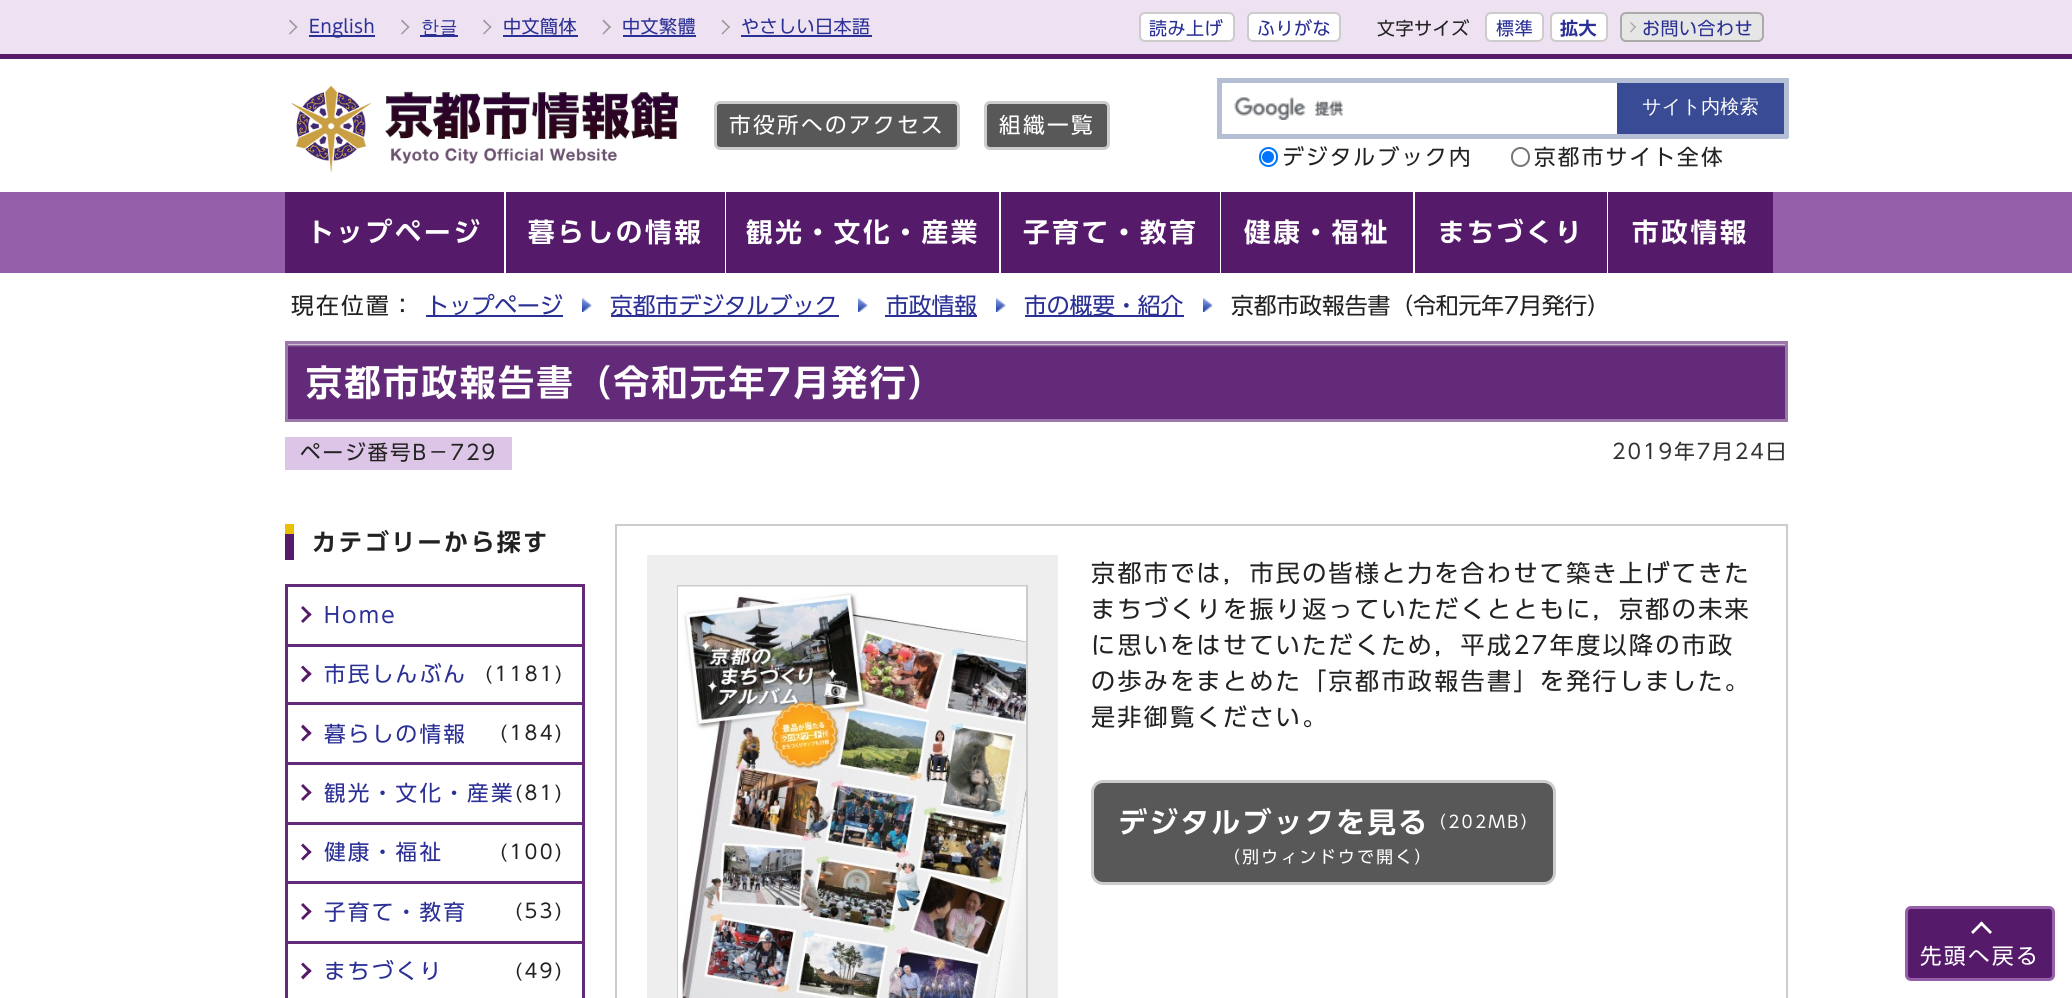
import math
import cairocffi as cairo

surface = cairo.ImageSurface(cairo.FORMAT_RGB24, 2072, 998)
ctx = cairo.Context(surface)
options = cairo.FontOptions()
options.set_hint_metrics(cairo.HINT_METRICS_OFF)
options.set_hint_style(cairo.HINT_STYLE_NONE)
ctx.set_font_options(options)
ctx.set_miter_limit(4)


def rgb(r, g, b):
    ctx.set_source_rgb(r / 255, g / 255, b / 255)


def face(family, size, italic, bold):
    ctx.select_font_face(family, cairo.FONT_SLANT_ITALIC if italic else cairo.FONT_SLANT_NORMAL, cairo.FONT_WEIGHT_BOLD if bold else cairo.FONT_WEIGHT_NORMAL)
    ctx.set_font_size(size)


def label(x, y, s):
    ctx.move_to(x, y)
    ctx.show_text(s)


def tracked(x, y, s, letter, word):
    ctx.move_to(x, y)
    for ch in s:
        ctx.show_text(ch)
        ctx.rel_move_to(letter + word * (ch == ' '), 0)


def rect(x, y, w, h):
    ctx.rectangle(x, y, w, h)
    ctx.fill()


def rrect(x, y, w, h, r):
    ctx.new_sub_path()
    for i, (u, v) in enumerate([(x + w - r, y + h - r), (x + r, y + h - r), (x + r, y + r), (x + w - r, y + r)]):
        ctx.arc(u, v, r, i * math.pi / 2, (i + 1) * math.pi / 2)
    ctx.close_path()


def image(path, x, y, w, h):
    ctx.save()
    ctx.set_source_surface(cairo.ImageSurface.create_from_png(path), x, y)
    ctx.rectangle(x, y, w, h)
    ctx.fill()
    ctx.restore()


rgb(255, 255, 255)
ctx.paint()
rgb(237, 225, 242)
rect(0, 0, 2072, 54)
rgb(85, 26, 106)
rect(0, 54, 2072, 5)
rgb(153, 153, 153)
ctx.new_path()
ctx.move_to(289, 21)
ctx.line_to(290, 19.5)
ctx.line_to(297.5, 27)
ctx.line_to(296.5, 28)
ctx.close_path()
ctx.fill()
ctx.new_path()
ctx.move_to(289, 33.5)
ctx.line_to(296.5, 26)
ctx.line_to(297.5, 27)
ctx.line_to(290, 34.5)
ctx.close_path()
ctx.fill()
rgb(43, 48, 149)
rect(309, 35, 66, 2)
face('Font', 18, 0, 0)
tracked(309, 33, 'English', 0.5, 0)
rgb(153, 153, 153)
ctx.new_path()
ctx.move_to(401, 21)
ctx.line_to(402, 19.5)
ctx.line_to(409.5, 27)
ctx.line_to(408.5, 28)
ctx.close_path()
ctx.fill()
ctx.new_path()
ctx.move_to(401, 33.5)
ctx.line_to(408.5, 26)
ctx.line_to(409.5, 27)
ctx.line_to(402, 34.5)
ctx.close_path()
ctx.fill()
rgb(43, 48, 149)
rect(420, 35, 38, 2)
face('WenQuanYi Zen Hei Medium', 18, 0, 0)
tracked(421, 33, '한글', 0.5, 0)
rgb(153, 153, 153)
ctx.new_path()
ctx.move_to(483, 21)
ctx.line_to(484, 19.5)
ctx.line_to(491.5, 27)
ctx.line_to(490.5, 28)
ctx.close_path()
ctx.fill()
ctx.new_path()
ctx.move_to(483, 33.5)
ctx.line_to(490.5, 26)
ctx.line_to(491.5, 27)
ctx.line_to(484, 34.5)
ctx.close_path()
ctx.fill()
face('Font', 18, 0, 0)
rgb(43, 48, 149)
tracked(503, 33, '中文簡体', 0.5, 0)
rect(503, 35, 75, 2)
rgb(153, 153, 153)
ctx.new_path()
ctx.move_to(602.5, 21)
ctx.line_to(603.5, 19.5)
ctx.line_to(611, 27)
ctx.line_to(609.5, 28)
ctx.close_path()
ctx.fill()
ctx.new_path()
ctx.move_to(602.5, 33.5)
ctx.line_to(609.5, 26)
ctx.line_to(611, 27)
ctx.line_to(603.5, 34.5)
ctx.close_path()
ctx.fill()
rgb(43, 48, 149)
tracked(622, 33, '中文繁體', 0.5, 0)
rect(623, 35, 73, 2)
rgb(153, 153, 153)
ctx.new_path()
ctx.move_to(721.5, 21)
ctx.line_to(722.5, 19.5)
ctx.line_to(730, 27)
ctx.line_to(729, 28)
ctx.close_path()
ctx.fill()
ctx.new_path()
ctx.move_to(721.5, 33.5)
ctx.line_to(729, 26)
ctx.line_to(730, 27)
ctx.line_to(722.5, 34.5)
ctx.close_path()
ctx.fill()
rgb(43, 48, 149)
tracked(741, 33, 'やさしい日本語', 0.5, 0)
rect(741, 35, 131, 2)
rgb(255, 255, 255)
rrect(1140, 13, 94, 28, 5)
ctx.fill_preserve()
rgb(204, 204, 204)
ctx.stroke()
rgb(43, 48, 149)
tracked(1149, 35, '読み上げ', 0.5, 0)
rgb(255, 255, 255)
rrect(1248, 13, 92, 28, 5)
ctx.fill_preserve()
rgb(204, 204, 204)
ctx.stroke()
rgb(43, 48, 149)
tracked(1257, 35, 'ふりがな', 0.5, 0)
rgb(34, 34, 34)
tracked(1377, 35, '文字サイズ', 0.5, 0)
rgb(255, 255, 255)
rrect(1486, 13, 57, 28, 5)
ctx.fill_preserve()
rgb(204, 204, 204)
ctx.stroke()
rgb(43, 48, 149)
tracked(1496, 35, '標準', 0.5, 0)
rgb(255, 255, 255)
rrect(1551, 13, 56, 28, 5)
ctx.fill_preserve()
rgb(204, 204, 204)
ctx.stroke()
face('Font SemiBold', 18, 0, 0)
rgb(43, 48, 149)
tracked(1560, 35, '拡大', 0.5, 0)
rgb(230, 230, 230)
rrect(1621, 13, 142, 28, 5)
ctx.fill_preserve()
rgb(170, 170, 170)
ctx.stroke()
ctx.new_path()
ctx.move_to(1630, 23)
ctx.line_to(1631, 22)
ctx.line_to(1636, 27)
ctx.line_to(1635, 28)
ctx.close_path()
ctx.fill()
ctx.new_path()
ctx.move_to(1630, 31.5)
ctx.line_to(1635, 26)
ctx.line_to(1636, 27)
ctx.line_to(1631, 32.5)
ctx.close_path()
ctx.fill()
face('Font', 18, 0, 0)
rgb(43, 48, 149)
tracked(1642, 35, 'お問い合わせ', 0.5, 0)
image('image0.png', 291, 85, 387, 88)
rgb(88, 88, 88)
rrect(715.5, 102.5, 243, 46, 4.5)
ctx.fill_preserve()
rgb(204, 204, 204)
ctx.set_line_width(3)
ctx.stroke()
face('Font', 21.6, 0, 0)
rgb(255, 255, 255)
tracked(729, 133, '市役所へのアクセス', 2.4, 0)
rgb(88, 88, 88)
rrect(985.5, 102.5, 123, 46, 4.5)
ctx.fill_preserve()
rgb(204, 204, 204)
ctx.stroke()
rgb(255, 255, 255)
tracked(999, 133, '組織一覧', 2.4, 0)
image('image1.png', 1234, 97, 110, 23)
rgb(180, 190, 213)
rect(1217, 78, 571, 5)
rect(1217, 134, 400, 5)
rect(1217, 78, 5, 60)
rgb(58, 75, 149)
rect(1617, 83, 167, 51)
rgb(180, 190, 213)
rect(1784, 78, 5, 60)
rect(1617, 134, 171, 5)
face('WenQuanYi Zen Hei Medium', 19.25, 0, 0)
rgb(255, 255, 255)
label(1642, 113, 'サイト内検索')
rrect(1260, 148, 17, 18, 8.5)
rgb(0, 117, 255)
ctx.set_line_width(2)
ctx.stroke()
ctx.arc(1268, 157, 6, 0, 2 * math.pi)
ctx.fill()
face('Font', 21.6, 0, 0)
rgb(34, 34, 34)
tracked(1282, 165, 'デジタルブック内', 2.25, 0)
rrect(1512, 148, 17, 18, 8.5)
rgb(118, 118, 118)
ctx.stroke()
rgb(34, 34, 34)
tracked(1534, 165, '京都市サイト全体', 2.25, 0)
rgb(150, 95, 170)
rect(0, 192, 2072, 81)
rgb(255, 255, 255)
rect(504, 192, 2, 81)
rgb(85, 26, 106)
rect(285, 192, 219, 81)
face('Font SemiBold', 26.5, 0, 0)
rgb(255, 255, 255)
tracked(307, 242, 'トップページ', 2.75, 0)
rect(725, 192, 1, 81)
rgb(85, 26, 106)
rect(506, 192, 219, 81)
rgb(255, 255, 255)
tracked(528, 242, '暮らしの情報', 2.75, 0)
rect(999, 192, 2, 81)
rgb(85, 26, 106)
rect(726, 192, 273, 81)
rgb(255, 255, 255)
tracked(746, 242, '観光・文化・産業', 2.75, 0)
rect(1220, 192, 1, 81)
rgb(85, 26, 106)
rect(1001, 192, 219, 81)
rgb(255, 255, 255)
tracked(1023, 242, '子育て・教育', 2.75, 0)
rect(1413, 192, 2, 81)
rgb(85, 26, 106)
rect(1221, 192, 192, 81)
rgb(255, 255, 255)
tracked(1244, 242, '健康・福祉', 2.75, 0)
rect(1607, 192, 1, 81)
rgb(85, 26, 106)
rect(1415, 192, 192, 81)
rgb(255, 255, 255)
tracked(1438, 242, 'まちづくり', 2.75, 0)
rgb(85, 26, 106)
rect(1608, 192, 165, 81)
rgb(255, 255, 255)
tracked(1632, 242, '市政情報', 2.75, 0)
face('Font', 22.75, 0, 0)
rgb(34, 34, 34)
tracked(291, 314, '現在位置：', 2.25, 0)
rgb(43, 48, 149)
rect(426, 315, 137, 2)
label(426, 314, 'トップページ')
image('image2.png', 582, 298, 10, 14)
rect(611, 315, 228, 2)
label(610, 314, '京都市デジタルブック')
image('image3.png', 858, 298, 10, 14)
rect(885, 315, 92, 2)
label(886, 314, '市政情報')
image('image3.png', 996, 298, 10, 14)
rect(1025, 315, 159, 2)
label(1024, 314, '市の概要・紹介')
image('image2.png', 1203, 298, 10, 14)
rgb(34, 34, 34)
label(1231, 314, '京都市政報告書（令和元年7月発行）')
rgb(98, 42, 120)
rect(288, 347, 1497, 72)
image('image4.png', 288, 344, 1497, 3)
ctx.rectangle(286.5, 342.5, 1500, 78)
rgb(156, 120, 170)
ctx.set_line_width(3)
ctx.stroke()
face('Font SemiBold', 36, 0, 0)
rgb(255, 255, 255)
tracked(306, 396, '京都市政報告書（令和元年7月発行）', 2.4, 0)
rgb(221, 197, 231)
rect(285, 437, 227, 33)
face('Font', 20.5, 0, 0)
rgb(34, 34, 34)
tracked(300, 460, 'ページ番号B－729', 2, 0)
rgb(51, 51, 51)
tracked(1612, 459, '2019年7月24日', 2, 0)
rgb(234, 191, 0)
rect(285, 524, 9, 10)
rgb(85, 26, 106)
rect(285, 534, 9, 26)
face('Font SemiBold', 24, 0, 0)
rgb(34, 34, 34)
tracked(312, 551, 'カテゴリーから探す', 2.4, 0)
rgb(98, 42, 120)
rect(285, 584, 300, 3)
rect(582, 584, 3, 414)
rect(285, 584, 3, 414)
rect(288, 644, 294, 3)
rgb(85, 26, 106)
ctx.new_path()
ctx.move_to(301, 608)
ctx.line_to(303, 606)
ctx.line_to(311.5, 614.5)
ctx.line_to(309.5, 616.5)
ctx.close_path()
ctx.fill()
ctx.new_path()
ctx.move_to(301, 621)
ctx.line_to(309.5, 612.5)
ctx.line_to(311.5, 614.5)
ctx.line_to(303, 623)
ctx.close_path()
ctx.fill()
face('Font', 21.6, 0, 0)
rgb(43, 48, 149)
tracked(324, 623, 'Home', 2.25, 0)
rgb(98, 42, 120)
rect(288, 702, 294, 3)
rgb(85, 26, 106)
ctx.new_path()
ctx.move_to(301, 667.5)
ctx.line_to(303, 665.5)
ctx.line_to(311.5, 674)
ctx.line_to(309.5, 676)
ctx.close_path()
ctx.fill()
ctx.new_path()
ctx.move_to(301, 680)
ctx.line_to(309.5, 671.5)
ctx.line_to(311.5, 674)
ctx.line_to(303, 682.5)
ctx.close_path()
ctx.fill()
rgb(43, 48, 149)
tracked(324, 682, '市民しんぶん', 2.25, 0)
face('Font', 19.5, 0, 0)
rgb(34, 34, 34)
tracked(485, 681, '(1181)', 2.25, 0)
rgb(98, 42, 120)
rect(288, 762, 294, 3)
rgb(85, 26, 106)
ctx.new_path()
ctx.move_to(301, 727)
ctx.line_to(303, 724.5)
ctx.line_to(311.5, 733)
ctx.line_to(309.5, 735.5)
ctx.close_path()
ctx.fill()
ctx.new_path()
ctx.move_to(301, 739.5)
ctx.line_to(309.5, 731)
ctx.line_to(311.5, 733)
ctx.line_to(303, 741.5)
ctx.close_path()
ctx.fill()
face('Font', 21.6, 0, 0)
rgb(43, 48, 149)
tracked(324, 742, '暮らしの情報', 2.25, 0)
face('Font', 19.5, 0, 0)
rgb(34, 34, 34)
tracked(500, 740, '(184)', 2.25, 0)
rgb(98, 42, 120)
rect(288, 822, 294, 3)
rgb(85, 26, 106)
ctx.new_path()
ctx.move_to(301, 786)
ctx.line_to(303, 784)
ctx.line_to(311.5, 792.5)
ctx.line_to(309.5, 794.5)
ctx.close_path()
ctx.fill()
ctx.new_path()
ctx.move_to(301, 799)
ctx.line_to(309.5, 790.5)
ctx.line_to(311.5, 792.5)
ctx.line_to(303, 801)
ctx.close_path()
ctx.fill()
face('Font', 21.6, 0, 0)
rgb(43, 48, 149)
tracked(324, 801, '観光・文化・産業', 2.25, 0)
face('Font', 19.5, 0, 0)
rgb(34, 34, 34)
tracked(515, 800, '(81)', 2.25, 0)
rgb(98, 42, 120)
rect(288, 881, 294, 3)
rgb(85, 26, 106)
ctx.new_path()
ctx.move_to(301, 845.5)
ctx.line_to(303, 843.5)
ctx.line_to(311.5, 852)
ctx.line_to(309.5, 854)
ctx.close_path()
ctx.fill()
ctx.new_path()
ctx.move_to(301, 858.5)
ctx.line_to(309.5, 850)
ctx.line_to(311.5, 852)
ctx.line_to(303, 860.5)
ctx.close_path()
ctx.fill()
face('Font', 21.6, 0, 0)
rgb(43, 48, 149)
tracked(324, 860, '健康・福祉', 2.25, 0)
face('Font', 19.5, 0, 0)
rgb(34, 34, 34)
tracked(500, 859, '(100)', 2.25, 0)
rgb(98, 42, 120)
rect(288, 941, 294, 3)
rgb(85, 26, 106)
ctx.new_path()
ctx.move_to(301, 905)
ctx.line_to(303, 903)
ctx.line_to(311.5, 911.5)
ctx.line_to(309.5, 913.5)
ctx.close_path()
ctx.fill()
ctx.new_path()
ctx.move_to(301, 918)
ctx.line_to(309.5, 909.5)
ctx.line_to(311.5, 911.5)
ctx.line_to(303, 920)
ctx.close_path()
ctx.fill()
face('Font', 21.6, 0, 0)
rgb(43, 48, 149)
tracked(324, 920, '子育て・教育', 2.25, 0)
face('Font', 19.5, 0, 0)
rgb(34, 34, 34)
tracked(515, 918, '(53)', 2.25, 0)
rgb(85, 26, 106)
ctx.new_path()
ctx.move_to(301, 964.5)
ctx.line_to(303, 962.5)
ctx.line_to(311.5, 971)
ctx.line_to(309.5, 973)
ctx.close_path()
ctx.fill()
ctx.new_path()
ctx.move_to(301, 977)
ctx.line_to(309.5, 968.5)
ctx.line_to(311.5, 971)
ctx.line_to(303, 979.5)
ctx.close_path()
ctx.fill()
face('Font', 21.6, 0, 0)
rgb(43, 48, 149)
tracked(324, 979, 'まちづくり', 2.25, 0)
face('Font', 19.5, 0, 0)
rgb(34, 34, 34)
tracked(515, 978, '(49)', 2.25, 0)
ctx.rectangle(616, 525, 1171, 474)
rgb(204, 204, 204)
ctx.set_line_width(2)
ctx.stroke()
rgb(238, 238, 238)
rect(647, 555, 411, 443)
ctx.rectangle(678, 586, 349, 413)
rgb(204, 204, 204)
ctx.stroke()
image('image5.png', 678, 586, 348, 412)
face('Font', 24, 0, 0)
rgb(34, 34, 34)
tracked(1091, 582, '京都市では，市民の皆様と力を合わせて築き上げてきた', 2.4, 0)
tracked(1091, 618, 'まちづくりを振り返っていただくとともに，京都の未来', 2.4, 0)
tracked(1091, 654, 'に思いをはせていただくため，平成27年度以降の市政', 2.4, 0)
tracked(1091, 690, 'の歩みをまとめた「京都市政報告書」を発行しました。', 2.4, 0)
tracked(1091, 726, '是非御覧ください。', 2.4, 0)
rgb(88, 88, 88)
rrect(1092.5, 781.5, 462, 102, 10.5)
ctx.fill_preserve()
rgb(204, 204, 204)
ctx.set_line_width(3)
ctx.stroke()
face('Font SemiBold', 28.75, 0, 0)
rgb(255, 255, 255)
tracked(1118, 833, 'デジタルブックを見る', 2.4, 0)
face('Font', 16.75, 0, 0)
tracked(1429, 828, '（202MB）', 2.4, 0)
tracked(1223, 863, '（別ウィンドウで開く）', 2.4, 0)
rgb(85, 26, 106)
rrect(1906.5, 907.5, 147, 72, 4.5)
ctx.fill_preserve()
rgb(150, 95, 170)
ctx.stroke()
rgb(255, 255, 255)
ctx.new_path()
ctx.move_to(1973, 934)
ctx.line_to(1971, 932)
ctx.line_to(1981.5, 921.5)
ctx.line_to(1983.5, 923.5)
ctx.close_path()
ctx.fill()
ctx.new_path()
ctx.move_to(1990, 934)
ctx.line_to(1979.5, 923.5)
ctx.line_to(1981.5, 921.5)
ctx.line_to(1992, 932)
ctx.close_path()
ctx.fill()
face('Font', 21.6, 0, 0)
tracked(1920, 964, '先頭へ戻る', 2.4, 0)
surface.write_to_png('render.png')
